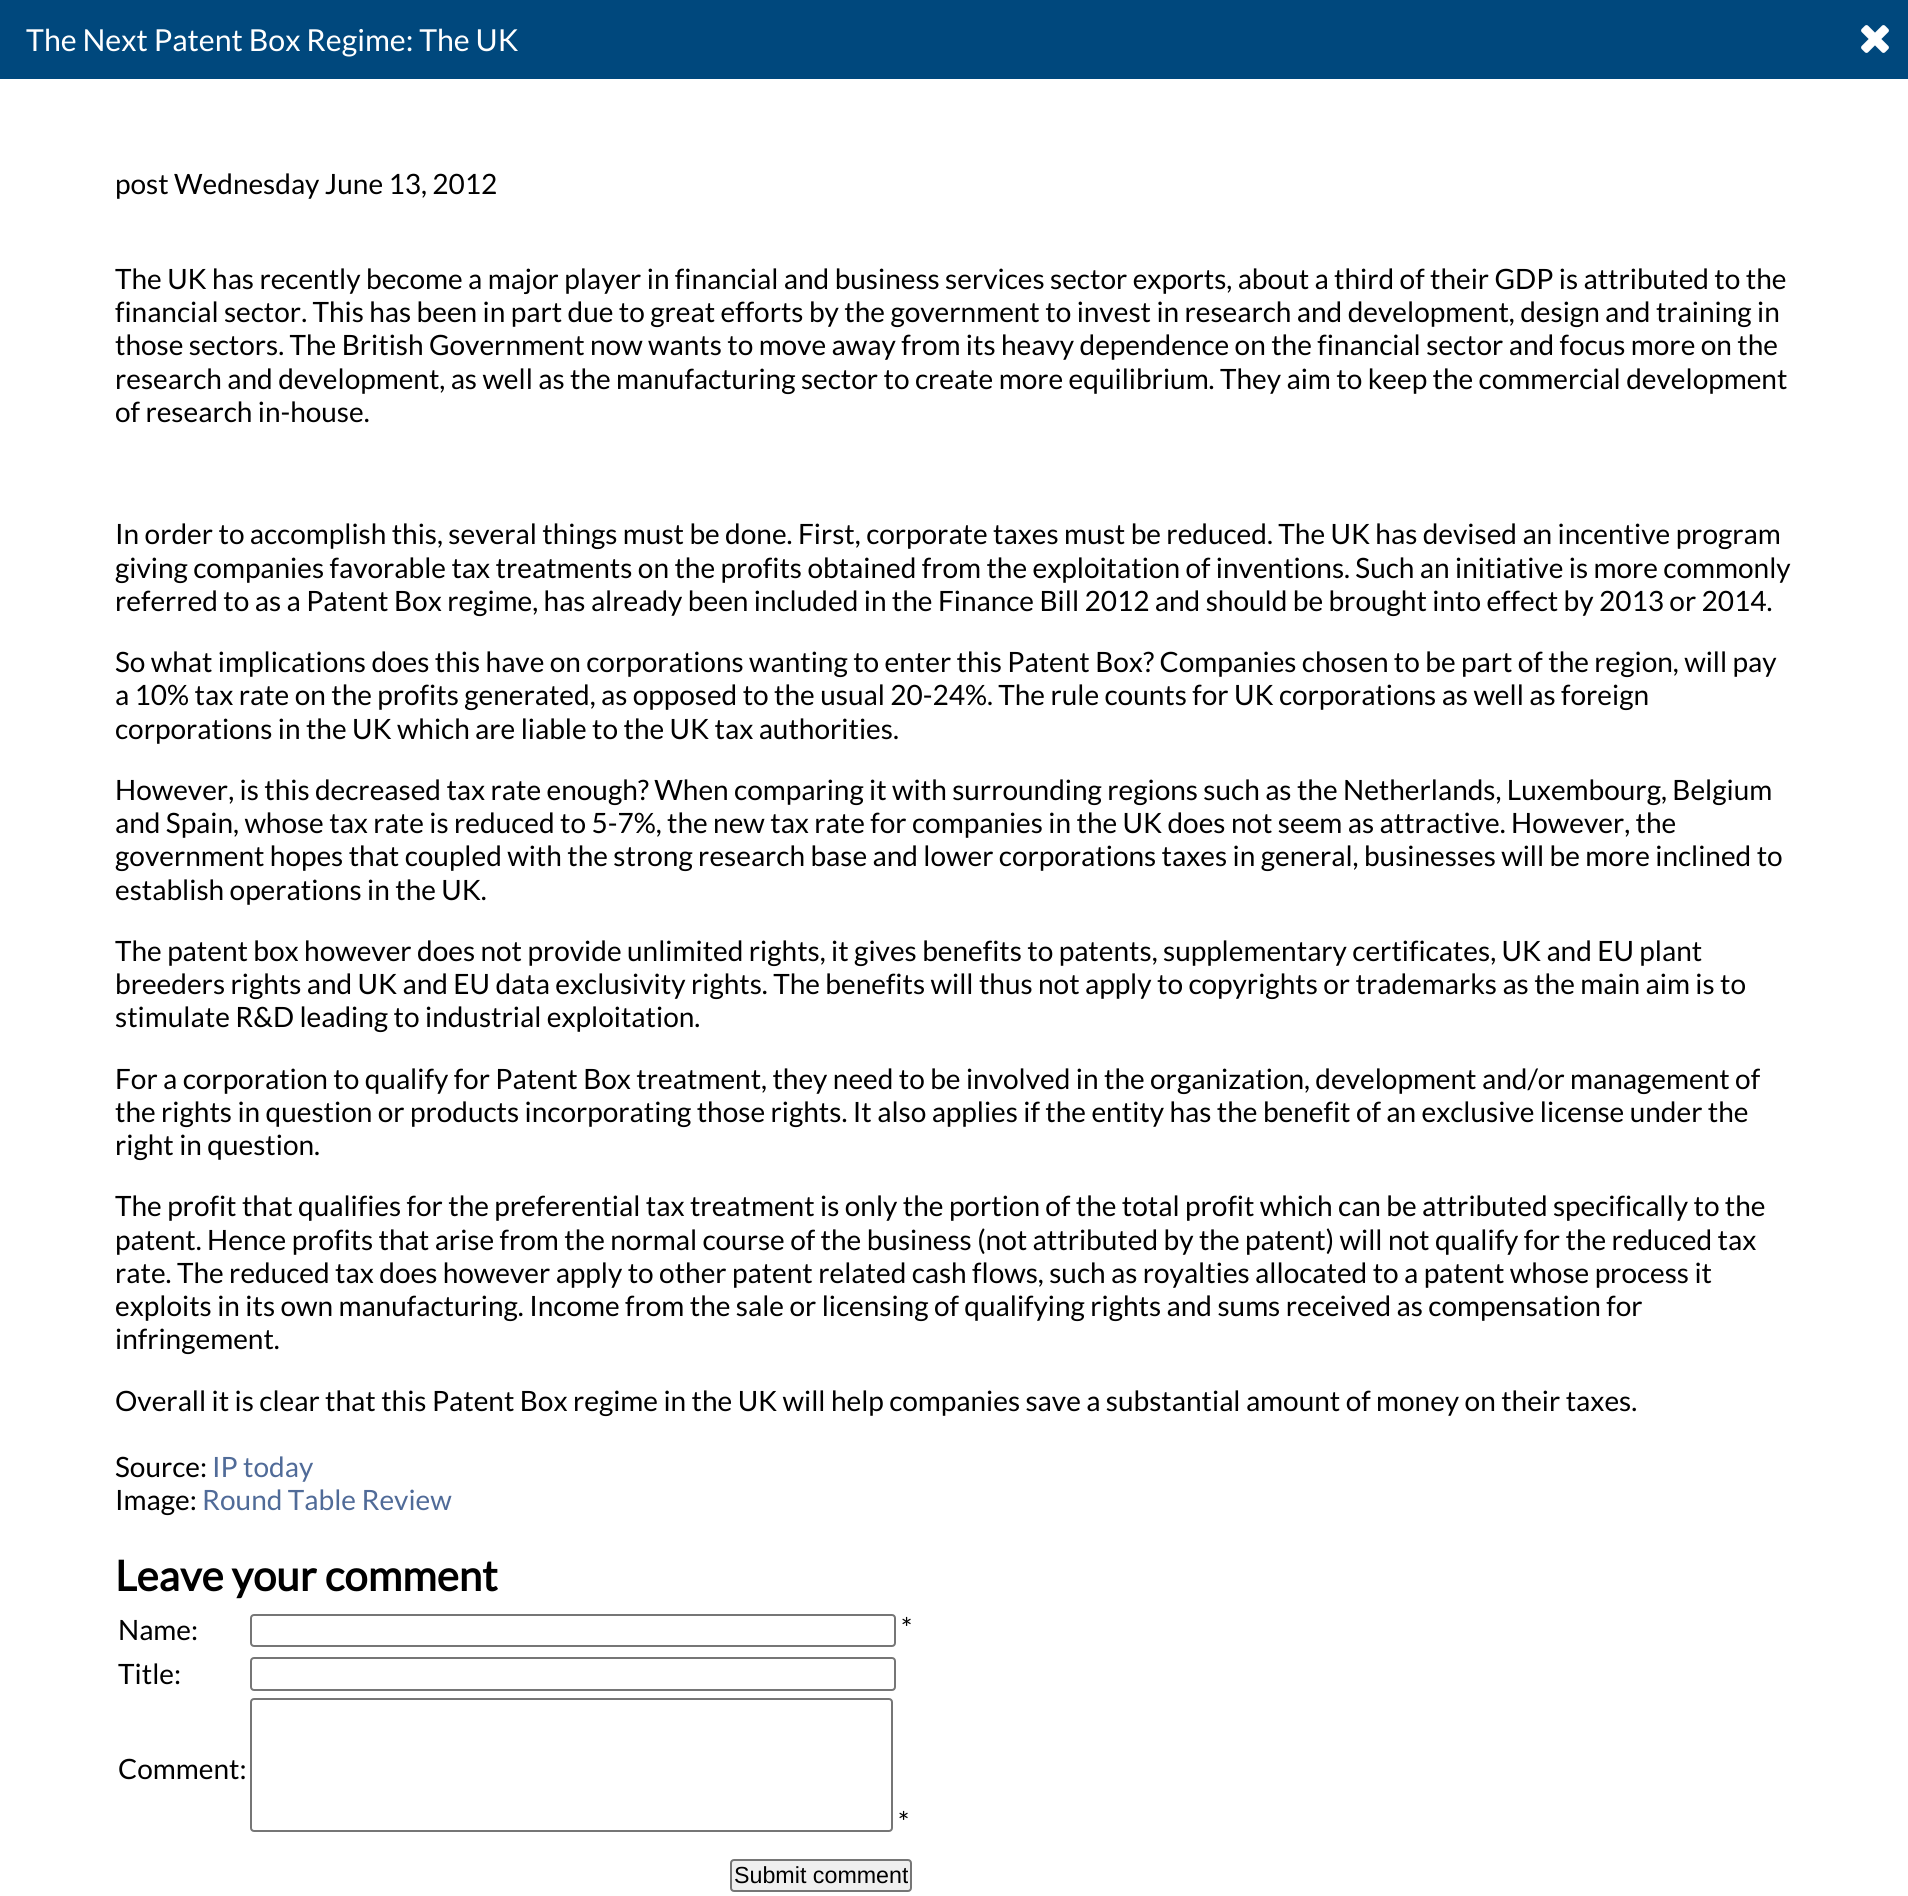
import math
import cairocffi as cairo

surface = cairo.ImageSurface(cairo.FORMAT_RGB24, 1908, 1896)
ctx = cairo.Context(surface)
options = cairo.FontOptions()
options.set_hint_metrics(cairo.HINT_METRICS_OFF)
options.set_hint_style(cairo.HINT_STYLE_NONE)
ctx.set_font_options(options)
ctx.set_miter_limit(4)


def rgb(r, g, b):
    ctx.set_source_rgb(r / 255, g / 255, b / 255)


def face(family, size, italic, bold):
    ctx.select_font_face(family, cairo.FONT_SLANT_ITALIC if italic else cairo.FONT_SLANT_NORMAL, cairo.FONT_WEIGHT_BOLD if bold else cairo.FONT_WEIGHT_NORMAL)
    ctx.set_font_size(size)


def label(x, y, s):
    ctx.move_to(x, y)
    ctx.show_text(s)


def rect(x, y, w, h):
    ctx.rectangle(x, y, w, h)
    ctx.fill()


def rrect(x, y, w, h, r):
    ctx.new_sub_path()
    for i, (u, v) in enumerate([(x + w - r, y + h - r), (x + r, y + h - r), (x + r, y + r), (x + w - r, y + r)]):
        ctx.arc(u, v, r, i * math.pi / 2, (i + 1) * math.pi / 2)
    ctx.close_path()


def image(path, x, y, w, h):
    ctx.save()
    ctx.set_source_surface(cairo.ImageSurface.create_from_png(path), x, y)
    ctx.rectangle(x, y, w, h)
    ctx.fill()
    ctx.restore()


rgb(255, 255, 255)
ctx.paint()
rgb(0, 72, 125)
rect(0, 0, 1908, 79)
face('Lato', 30.3, 0, 0)
rgb(255, 255, 255)
label(26, 51, 'The Next Patent Box Regime: The UK')
image('image0.png', 1861, 25, 28, 28)
face('Lato', 28, 0, 0)
rgb(0, 0, 0)
label(115, 194, 'post Wednesday June 13, 2012')
label(115, 289, 'The UK has recently become a major player in financial and business services sector exports, about a third of their GDP is attributed to the')
label(115, 322, 'financial sector. This has been in part due to great efforts by the government to invest in research and development, design and training in')
label(115, 355, 'those sectors. The British Government now wants to move away from its heavy dependence on the financial sector and focus more on the')
label(115, 389, 'research and development, as well as the manufacturing sector to create more equilibrium. They aim to keep the commercial development')
label(115, 422, 'of research in-house.')
label(115, 544, 'In order to accomplish this, several things must be done. First, corporate taxes must be reduced. The UK has devised an incentive program')
label(115, 578, 'giving companies favorable tax treatments on the profits obtained from the exploitation of inventions. Such an initiative is more commonly')
label(115, 611, 'referred to as a Patent Box regime, has already been included in the Finance Bill 2012 and should be brought into effect by 2013 or 2014.')
label(115, 672, 'So what implications does this have on corporations wanting to enter this Patent Box? Companies chosen to be part of the region, will pay')
label(115, 705, 'a 10% tax rate on the profits generated, as opposed to the usual 20-24%. The rule counts for UK corporations as well as foreign')
label(115, 739, 'corporations in the UK which are liable to the UK tax authorities.')
label(115, 800, 'However, is this decreased tax rate enough? When comparing it with surrounding regions such as the Netherlands, Luxembourg, Belgium')
label(115, 833, 'and Spain, whose tax rate is reduced to 5-7%, the new tax rate for companies in the UK does not seem as attractive. However, the')
label(115, 866, 'government hopes that coupled with the strong research base and lower corporations taxes in general, businesses will be more inclined to')
label(115, 900, 'establish operations in the UK.')
label(115, 961, 'The patent box however does not provide unlimited rights, it gives benefits to patents, supplementary certificates, UK and EU plant')
label(115, 994, 'breeders rights and UK and EU data exclusivity rights. The benefits will thus not apply to copyrights or trademarks as the main aim is to')
label(115, 1027, 'stimulate R&D leading to industrial exploitation.')
label(115, 1089, 'For a corporation to qualify for Patent Box treatment, they need to be involved in the organization, development and/or management of')
label(115, 1122, 'the rights in question or products incorporating those rights. It also applies if the entity has the benefit of an exclusive license under the')
label(115, 1155, 'right in question.')
label(115, 1216, 'The profit that qualifies for the preferential tax treatment is only the portion of the total profit which can be attributed specifically to the')
label(115, 1250, 'patent. Hence profits that arise from the normal course of the business (not attributed by the patent) will not qualify for the reduced tax')
label(115, 1283, 'rate. The reduced tax does however apply to other patent related cash flows, such as royalties allocated to a patent whose process it')
label(115, 1316, 'exploits in its own manufacturing. Income from the sale or licensing of qualifying rights and sums received as compensation for')
label(115, 1349, 'infringement.')
label(115, 1411, 'Overall it is clear that this Patent Box regime in the UK will help companies save a substantial amount of money on their taxes.')
label(115, 1477, 'Source:')
rgb(80, 107, 152)
label(212, 1477, 'IP today')
rgb(0, 0, 0)
label(115, 1510, 'Image:')
rgb(80, 107, 152)
label(202, 1510, 'Round Table Review')
face('Lato', 42, 0, 1)
rgb(0, 0, 0)
label(115, 1591, 'Leave your comment')
face('Lato', 28, 0, 0)
label(118, 1640, 'Name:')
rrect(251, 1615, 644, 31, 3)
rgb(118, 118, 118)
ctx.stroke()
rgb(0, 0, 0)
label(901, 1638, '*')
label(118, 1684, 'Title:')
rrect(251, 1658, 644, 32, 3)
rgb(118, 118, 118)
ctx.stroke()
rgb(0, 0, 0)
label(118, 1779, 'Comment:')
rrect(251, 1699, 641, 132, 3)
rgb(118, 118, 118)
ctx.stroke()
rgb(0, 0, 0)
label(898, 1832, '*')
rgb(239, 239, 239)
rrect(731, 1860, 180, 31, 3)
ctx.fill_preserve()
rgb(118, 118, 118)
ctx.stroke()
ctx.save()
ctx.rectangle(733, 1862, 175, 26)
ctx.clip()
face('Liberation Sans', 23.25, 0, 0)
rgb(0, 0, 0)
label(734, 1883, 'Submit comment')
ctx.restore()
surface.write_to_png('render.png')
